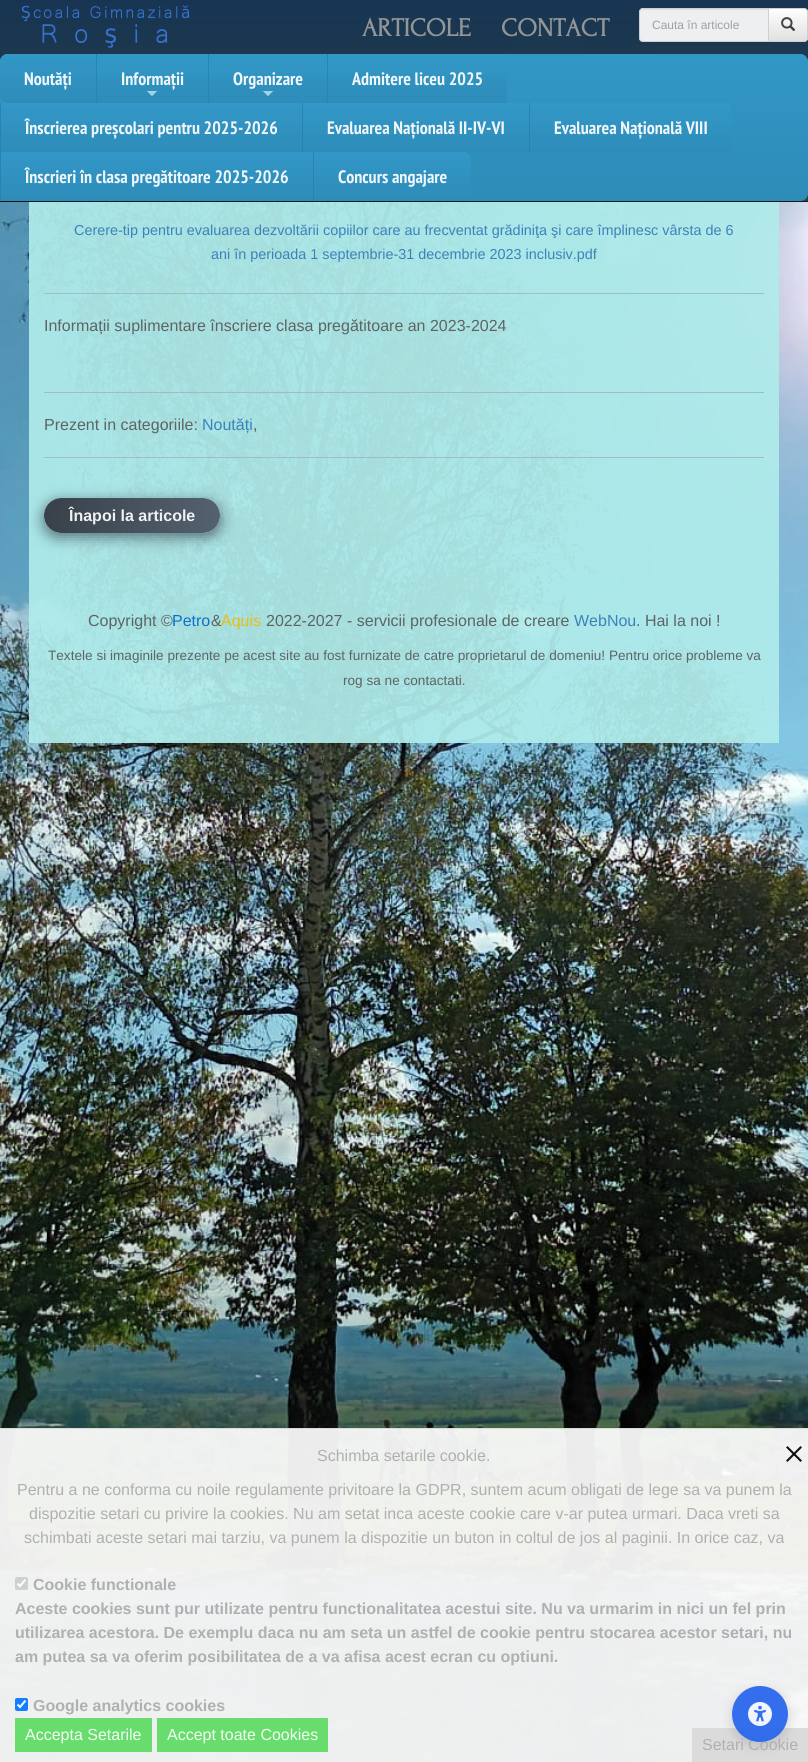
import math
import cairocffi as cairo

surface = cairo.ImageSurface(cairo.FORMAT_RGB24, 808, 1762)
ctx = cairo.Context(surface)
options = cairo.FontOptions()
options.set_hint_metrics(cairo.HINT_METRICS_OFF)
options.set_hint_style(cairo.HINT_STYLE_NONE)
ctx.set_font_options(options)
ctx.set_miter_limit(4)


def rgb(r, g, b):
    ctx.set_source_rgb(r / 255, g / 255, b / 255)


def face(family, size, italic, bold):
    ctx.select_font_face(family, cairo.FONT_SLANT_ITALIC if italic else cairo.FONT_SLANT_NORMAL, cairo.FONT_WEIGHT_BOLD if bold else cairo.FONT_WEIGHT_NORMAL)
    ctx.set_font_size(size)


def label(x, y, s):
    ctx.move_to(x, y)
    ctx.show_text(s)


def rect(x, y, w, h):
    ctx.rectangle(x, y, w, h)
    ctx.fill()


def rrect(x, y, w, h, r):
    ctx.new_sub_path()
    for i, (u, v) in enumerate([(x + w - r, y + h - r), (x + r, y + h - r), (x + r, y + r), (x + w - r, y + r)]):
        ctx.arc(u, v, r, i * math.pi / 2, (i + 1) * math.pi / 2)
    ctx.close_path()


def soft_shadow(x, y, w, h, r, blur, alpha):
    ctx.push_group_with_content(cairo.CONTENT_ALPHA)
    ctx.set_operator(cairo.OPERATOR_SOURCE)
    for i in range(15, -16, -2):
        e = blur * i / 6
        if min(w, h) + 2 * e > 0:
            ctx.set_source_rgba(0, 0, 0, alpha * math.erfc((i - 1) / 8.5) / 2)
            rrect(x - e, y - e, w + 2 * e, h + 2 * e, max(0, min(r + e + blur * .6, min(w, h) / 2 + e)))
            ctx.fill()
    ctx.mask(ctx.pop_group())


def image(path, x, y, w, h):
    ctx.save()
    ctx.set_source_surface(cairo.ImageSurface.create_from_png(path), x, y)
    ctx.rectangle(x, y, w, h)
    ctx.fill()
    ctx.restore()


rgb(255, 255, 255)
ctx.paint()
image('image0.png', 0, 0, 808, 1762)
ctx.set_source_rgba(0.69, 0.922, 0.918, 0.92)
rect(29, 116, 750, 627)
ctx.set_source_rgba(0.616, 0.722, 0.792, 0.92)
rect(44, 192, 720, 1)
ctx.set_source_rgba(0.133, 0.133, 0.133, 0.92)
rect(0, 0, 808, 201)
gradient = cairo.LinearGradient(404, 0, 404, 201)
gradient.add_color_stop_rgba(0, 0.086, 0.212, 0.337, 0.92)
gradient.add_color_stop_rgba(1, 0.169, 0.263, 0.271, 0.92)
ctx.set_source(gradient)
rect(0, 0, 808, 201)
ctx.set_source_rgba(0.031, 0.031, 0.031, 0.92)
rect(0, 201, 808, 1)
image('image1.png', 21, 5, 169, 43)
face('Forum', 26, 0, 1)
rgb(147, 149, 151)
label(362, 36, 'ARTICOLE')
label(501, 36, 'CONTACT')
ctx.set_source_rgba(1, 1, 1, 0.92)
ctx.new_path()
ctx.move_to(768, 8)
ctx.line_to(804, 8)
ctx.curve_to(806, 8, 808, 10, 808, 12)
ctx.line_to(808, 38)
ctx.curve_to(808, 40, 806, 42, 804, 42)
ctx.line_to(768, 42)
ctx.close_path()
ctx.fill()
ctx.save()
ctx.new_path()
ctx.move_to(768, 8)
ctx.line_to(804, 8)
ctx.curve_to(806, 8, 808, 10, 808, 12)
ctx.line_to(808, 38)
ctx.curve_to(808, 40, 806, 42, 804, 42)
ctx.line_to(768, 42)
ctx.close_path()
ctx.clip()
gradient = cairo.LinearGradient(788, 9, 788, 41)
gradient.add_color_stop_rgba(0, 1, 1, 1, 0.92)
gradient.add_color_stop_rgba(1, 0.878, 0.878, 0.878, 0.92)
ctx.set_source(gradient)
rect(768, 9, 40, 32)
ctx.restore()
ctx.new_path()
ctx.move_to(768.5, 8.5)
ctx.line_to(804, 8.5)
ctx.curve_to(806, 8.5, 807.5, 10, 807.5, 12)
ctx.line_to(807.5, 38)
ctx.curve_to(807.5, 40, 806, 41.5, 804, 41.5)
ctx.line_to(768.5, 41.5)
ctx.close_path()
ctx.set_source_rgba(0.8, 0.8, 0.8, 0.92)
ctx.set_line_width(1)
ctx.stroke()
ctx.set_source_rgba(1, 1, 1, 0.92)
ctx.new_path()
ctx.move_to(643, 8)
ctx.line_to(769, 8)
ctx.line_to(769, 42)
ctx.line_to(643, 42)
ctx.curve_to(641, 42, 639, 40, 639, 38)
ctx.line_to(639, 12)
ctx.curve_to(639, 10, 641, 8, 643, 8)
ctx.close_path()
ctx.fill()
rgb(220, 222, 224)
ctx.new_path()
ctx.move_to(643, 10)
ctx.line_to(768, 10)
ctx.line_to(768, 9)
ctx.line_to(643, 9)
ctx.curve_to(641, 9, 640, 11, 640, 13)
ctx.curve_to(640, 11, 641, 10, 643, 10)
ctx.close_path()
ctx.fill()
ctx.new_path()
ctx.move_to(643, 8.5)
ctx.line_to(768.5, 8.5)
ctx.line_to(768.5, 41.5)
ctx.line_to(643, 41.5)
ctx.curve_to(641, 41.5, 639.5, 40, 639.5, 38)
ctx.line_to(639.5, 12)
ctx.curve_to(639.5, 10, 641, 8.5, 643, 8.5)
ctx.close_path()
ctx.set_source_rgba(0.8, 0.8, 0.8, 0.92)
ctx.stroke()
face('Liberation Sans', 12, 0, 0)
rgb(160, 160, 160)
label(652, 29, 'Cauta în articole')
image('image2.png', 781, 17, 15, 14)
ctx.set_source_rgba(0.188, 0.573, 0.753, 0.92)
rrect(0, 54, 808, 147, 8)
ctx.fill()
gradient = cairo.LinearGradient(404, 54, 404, 201)
gradient.add_color_stop_rgba(0, 0.196, 0.596, 0.784, 0.92)
gradient.add_color_stop_rgba(1, 0.18, 0.549, 0.722, 0.92)
ctx.set_source(gradient)
rrect(0, 54, 808, 147, 8)
ctx.fill()
ctx.set_source_rgba(0.188, 0.573, 0.753, 0.92)
ctx.new_path()
ctx.move_to(8, 54)
ctx.line_to(96, 54)
ctx.line_to(96, 103)
ctx.line_to(8, 103)
ctx.curve_to(3.5, 103, 0, 99.5, 0, 95)
ctx.line_to(0, 62)
ctx.curve_to(0, 57.5, 3.5, 54, 8, 54)
ctx.close_path()
ctx.fill()
gradient = cairo.LinearGradient(48, 54, 48, 103)
gradient.add_color_stop_rgba(0, 0.196, 0.596, 0.784, 0.92)
gradient.add_color_stop_rgba(1, 0.18, 0.549, 0.722, 0.92)
ctx.set_source(gradient)
ctx.new_path()
ctx.move_to(8, 54)
ctx.line_to(96, 54)
ctx.line_to(96, 103)
ctx.line_to(8, 103)
ctx.curve_to(3.5, 103, 0, 99.5, 0, 95)
ctx.line_to(0, 62)
ctx.curve_to(0, 57.5, 3.5, 54, 8, 54)
ctx.close_path()
ctx.fill()
face('PT Sans Narrow', 18, 0, 1)
rgb(238, 246, 250)
label(24, 85, 'Noutăți')
ctx.set_source_rgba(0.169, 0.51, 0.675, 0.92)
rect(96, 54, 1, 49)
gradient = cairo.LinearGradient(153, 54, 153, 103)
gradient.add_color_stop_rgba(0, 0.196, 0.596, 0.78, 1)
gradient.add_color_stop_rgba(1, 0.18, 0.549, 0.725, 1)
ctx.set_source(gradient)
rect(97, 73, 111, 30)
rgb(238, 246, 250)
label(121, 85, 'Informații')
rgb(152, 204, 228)
ctx.new_path()
ctx.move_to(147, 91)
ctx.line_to(157, 91)
ctx.line_to(152, 96)
ctx.close_path()
ctx.fill()
ctx.set_source_rgba(0.631, 0.82, 0.91, 0.92)
ctx.new_path()
ctx.move_to(147, 91)
ctx.line_to(157, 91)
ctx.line_to(152, 96)
ctx.close_path()
ctx.fill()
ctx.set_source_rgba(0.169, 0.51, 0.675, 0.92)
rect(208, 54, 1, 49)
gradient = cairo.LinearGradient(268, 54, 268, 103)
gradient.add_color_stop_rgba(0, 0.196, 0.596, 0.78, 1)
gradient.add_color_stop_rgba(1, 0.18, 0.549, 0.725, 1)
ctx.set_source(gradient)
rect(209, 73, 118, 30)
rgb(238, 246, 250)
label(233, 85, 'Organizare')
rgb(152, 204, 228)
ctx.new_path()
ctx.move_to(263, 91)
ctx.line_to(273, 91)
ctx.line_to(268, 96)
ctx.close_path()
ctx.fill()
ctx.set_source_rgba(0.631, 0.82, 0.91, 0.92)
ctx.new_path()
ctx.move_to(263, 91)
ctx.line_to(273, 91)
ctx.line_to(268, 96)
ctx.close_path()
ctx.fill()
ctx.set_source_rgba(0.169, 0.51, 0.675, 0.92)
rect(327, 54, 1, 49)
gradient = cairo.LinearGradient(418, 54, 418, 103)
gradient.add_color_stop_rgba(0, 0.196, 0.596, 0.78, 1)
gradient.add_color_stop_rgba(1, 0.18, 0.549, 0.725, 1)
ctx.set_source(gradient)
rect(328, 73, 179, 30)
rgb(238, 246, 250)
label(352, 85, 'Admitere liceu 2025')
ctx.set_source_rgba(0.169, 0.51, 0.675, 0.92)
rect(0, 103, 1, 49)
gradient = cairo.LinearGradient(152, 103, 152, 152)
gradient.add_color_stop_rgba(0, 0.196, 0.596, 0.78, 1)
gradient.add_color_stop_rgba(1, 0.18, 0.549, 0.725, 1)
ctx.set_source(gradient)
rect(1, 103, 301, 49)
rgb(238, 246, 250)
label(25, 134, 'Înscrierea preșcolari pentru 2025-2026')
ctx.set_source_rgba(0.169, 0.51, 0.675, 0.92)
rect(302, 103, 1, 49)
gradient = cairo.LinearGradient(416, 103, 416, 152)
gradient.add_color_stop_rgba(0, 0.196, 0.596, 0.78, 1)
gradient.add_color_stop_rgba(1, 0.18, 0.549, 0.725, 1)
ctx.set_source(gradient)
rect(303, 103, 226, 49)
rgb(238, 246, 250)
label(327, 134, 'Evaluarea Națională II-IV-VI')
ctx.set_source_rgba(0.169, 0.51, 0.675, 0.92)
rect(529, 103, 1, 49)
gradient = cairo.LinearGradient(631, 103, 631, 152)
gradient.add_color_stop_rgba(0, 0.196, 0.596, 0.78, 1)
gradient.add_color_stop_rgba(1, 0.18, 0.549, 0.725, 1)
ctx.set_source(gradient)
rect(530, 103, 201, 49)
rgb(238, 246, 250)
label(554, 134, 'Evaluarea Națională VIII')
ctx.set_source_rgba(0.169, 0.51, 0.675, 0.92)
rect(0, 152, 1, 49)
ctx.set_source_rgba(0.188, 0.573, 0.753, 0.92)
rect(1, 152, 312, 49)
gradient = cairo.LinearGradient(157, 152, 157, 201)
gradient.add_color_stop_rgba(0, 0.196, 0.596, 0.784, 0.92)
gradient.add_color_stop_rgba(1, 0.18, 0.549, 0.722, 0.92)
ctx.set_source(gradient)
rect(1, 152, 312, 49)
rgb(238, 246, 250)
label(25, 183, 'Înscrieri în clasa pregătitoare 2025-2026')
ctx.set_source_rgba(0.169, 0.51, 0.675, 0.92)
rect(313, 152, 1, 49)
ctx.set_source_rgba(0.188, 0.573, 0.753, 0.92)
ctx.new_path()
ctx.move_to(314, 152)
ctx.line_to(463, 152)
ctx.curve_to(467.5, 152, 471, 155.5, 471, 160)
ctx.line_to(471, 193)
ctx.curve_to(471, 197.5, 467.5, 201, 463, 201)
ctx.line_to(314, 201)
ctx.close_path()
ctx.fill()
gradient = cairo.LinearGradient(393, 152, 393, 201)
gradient.add_color_stop_rgba(0, 0.196, 0.596, 0.784, 0.92)
gradient.add_color_stop_rgba(1, 0.18, 0.549, 0.722, 0.92)
ctx.set_source(gradient)
ctx.new_path()
ctx.move_to(314, 152)
ctx.line_to(463, 152)
ctx.curve_to(467.5, 152, 471, 155.5, 471, 160)
ctx.line_to(471, 193)
ctx.curve_to(471, 197.5, 467.5, 201, 463, 201)
ctx.line_to(314, 201)
ctx.close_path()
ctx.fill()
rgb(238, 246, 250)
label(338, 183, 'Concurs angajare')
face('Liberation Sans', 14.4, 0, 0)
rgb(60, 130, 186)
label(74, 235, 'Cerere-tip pentru evaluarea dezvoltării copiilor care au frecventat grădiniţa şi care împlinesc vârsta de 6')
label(211, 259, 'ani în perioada 1 septembrie-31 decembrie 2023 inclusiv.pdf')
ctx.set_source_rgba(0.616, 0.722, 0.792, 0.92)
rect(44, 293, 720, 1)
face('Liberation Sans', 16, 0, 0)
rgb(94, 99, 99)
label(44, 331, 'Informații suplimentare înscriere clasa pregătitoare an 2023-2024')
ctx.set_source_rgba(0.616, 0.722, 0.792, 0.92)
rect(44, 392, 720, 1)
rgb(94, 99, 99)
label(44, 430, 'Prezent in categoriile:')
rgb(60, 130, 186)
label(202, 430, 'Noutăți')
rgb(94, 99, 99)
label(253, 430, ',')
ctx.set_source_rgba(0.616, 0.722, 0.792, 0.92)
rect(44, 457, 720, 1)
ctx.save()
ctx.set_fill_rule(cairo.FILL_RULE_EVEN_ODD)
ctx.new_path()
ctx.move_to(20, 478)
ctx.line_to(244, 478)
ctx.line_to(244, 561)
ctx.line_to(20, 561)
ctx.close_path()
ctx.move_to(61.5, 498)
ctx.line_to(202.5, 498)
ctx.curve_to(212, 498, 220, 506, 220, 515.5)
ctx.curve_to(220, 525, 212, 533, 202.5, 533)
ctx.line_to(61.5, 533)
ctx.curve_to(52, 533, 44, 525, 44, 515.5)
ctx.curve_to(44, 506, 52, 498, 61.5, 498)
ctx.close_path()
ctx.clip()
rgb(45, 54, 65)
soft_shadow(44, 502, 176, 35, 17.5, 7.5, 0.69)
ctx.restore()
ctx.set_source_rgba(0.937, 0.937, 0.937, 0.92)
rrect(44, 498, 176, 35, 17.5)
ctx.fill()
gradient = cairo.LinearGradient(44, 516, 572, 516)
gradient.add_color_stop_rgba(0, 0.161, 0.196, 0.235, 0.92)
gradient.add_color_stop_rgba(0.33, 0.282, 0.333, 0.388, 0.92)
gradient.add_color_stop_rgba(0.67, 0.169, 0.345, 0.463, 0.92)
gradient.add_color_stop_rgba(1, 0.306, 0.263, 0.463, 0.92)
ctx.set_source(gradient)
rrect(44, 498, 176, 35, 17.5)
ctx.fill()
face('Liberation Sans', 16, 0, 1)
rgb(240, 241, 242)
label(69, 521, 'Înapoi la articole')
face('Liberation Sans', 16, 0, 0)
rgb(94, 99, 99)
label(88, 626, 'Copyright ©')
rgb(13, 112, 205)
label(172, 626, 'Petro')
rgb(94, 99, 99)
label(211, 626, '&')
rgb(232, 190, 18)
label(221, 626, 'Aquis')
rgb(94, 99, 99)
label(266, 626, '2022-2027 - servicii profesionale de creare')
rgb(60, 130, 186)
label(574, 626, 'WebNou')
rgb(94, 99, 99)
label(636, 626, '. Hai la noi !')
face('Liberation Sans', 13.6, 0, 0)
label(48, 660, 'Textele si imaginile prezente pe acest site au fost furnizate de catre proprietarul de domeniu! Pentru orice probleme va')
label(343, 685, 'rog sa ne contactati.')
ctx.set_source_rgba(1, 1, 1, 0.92)
rect(0, 1428, 808, 334)
ctx.set_source_rgba(0.851, 0.851, 0.851, 0.92)
rect(0, 1428, 808, 1)
face('Liberation Sans', 16, 0, 0)
rgb(175, 176, 175)
label(317, 1461, 'Schimba setarile cookie.')
ctx.set_source_rgba(0, 0, 0, 0.92)
ctx.new_path()
ctx.move_to(800.5, 1446)
ctx.line_to(802, 1447.5)
ctx.line_to(787.5, 1462)
ctx.line_to(786, 1460.5)
ctx.close_path()
ctx.fill()
ctx.new_path()
ctx.move_to(786, 1447.5)
ctx.line_to(787.5, 1446)
ctx.line_to(802, 1460.5)
ctx.line_to(800.5, 1462)
ctx.close_path()
ctx.fill()
rgb(175, 176, 175)
label(17, 1495, 'Pentru a ne conforma cu noile regulamente privitoare la GDPR, suntem acum obligati de lege sa va punem la')
label(29, 1519, 'dispozitie setari cu privire la cookies. Nu am setat inca aceste cookie care v-ar putea urmari. Daca vreti sa')
label(24, 1543, 'schimbati aceste setari mai tarziu, va punem la dispozitie un buton in coltul de jos al paginii. In orice caz, va')
ctx.set_source_rgba(0.463, 0.463, 0.463, 0.28)
rrect(15, 1577, 13, 13, 2)
ctx.fill()
ctx.new_path()
ctx.move_to(17.5, 1583.5)
ctx.line_to(20, 1586)
ctx.line_to(25.5, 1579.5)
rgb(251, 251, 251)
ctx.set_line_width(2.1)
ctx.stroke()
face('Liberation Sans', 16, 0, 1)
rgb(175, 176, 175)
label(33, 1590, 'Cookie functionale')
label(15, 1614, 'Aceste cookies sunt pur utilizate pentru functionalitatea acestui site. Nu va urmarim in nici un fel prin')
label(15, 1638, 'utilizarea acestora. De exemplu daca nu am seta un astfel de cookie pentru stocarea acestor setari, nu')
label(15, 1662, 'am putea sa va oferim posibilitatea de a va afisa acest ecran cu optiuni.')
rgb(19, 127, 254)
rrect(15, 1698, 13, 13, 2)
ctx.fill()
ctx.new_path()
ctx.move_to(17.5, 1704.5)
ctx.line_to(20, 1707)
ctx.line_to(25.5, 1700.5)
rgb(236, 245, 255)
ctx.stroke()
rgb(175, 176, 175)
label(33, 1711, 'Google analytics cookies')
ctx.set_source_rgba(0.365, 0.859, 0.388, 0.92)
rect(15, 1718, 137, 34)
face('Liberation Sans', 16, 0, 0)
rgb(243, 252, 243)
label(25, 1740, 'Accepta Setarile')
ctx.set_source_rgba(0.365, 0.859, 0.388, 0.92)
rect(157, 1718, 171, 34)
rgb(243, 252, 243)
label(167, 1740, 'Accept toate Cookies')
ctx.set_source_rgba(0.851, 0.851, 0.851, 0.92)
rect(692, 1728, 116, 34)
ctx.save()
ctx.set_fill_rule(cairo.FILL_RULE_EVEN_ODD)
ctx.new_path()
ctx.move_to(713, 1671)
ctx.line_to(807, 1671)
ctx.line_to(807, 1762)
ctx.line_to(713, 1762)
ctx.close_path()
ctx.move_to(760, 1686)
ctx.curve_to(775.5, 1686, 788, 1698.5, 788, 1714)
ctx.curve_to(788, 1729.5, 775.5, 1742, 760, 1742)
ctx.curve_to(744.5, 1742, 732, 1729.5, 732, 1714)
ctx.curve_to(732, 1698.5, 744.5, 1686, 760, 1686)
ctx.close_path()
ctx.clip()
rgb(0, 0, 0)
soft_shadow(732, 1690, 56, 56, 28, 6, 0.14)
ctx.restore()
rgb(175, 176, 175)
label(702, 1750, 'Setari Cookie')
ctx.set_source_rgba(0.145, 0.388, 0.922, 0.92)
ctx.new_path()
ctx.arc(760, 1714, 28, 0, 2 * math.pi)
ctx.fill()
image('image3.png', 748, 1702, 24, 24)
surface.write_to_png('render.png')
